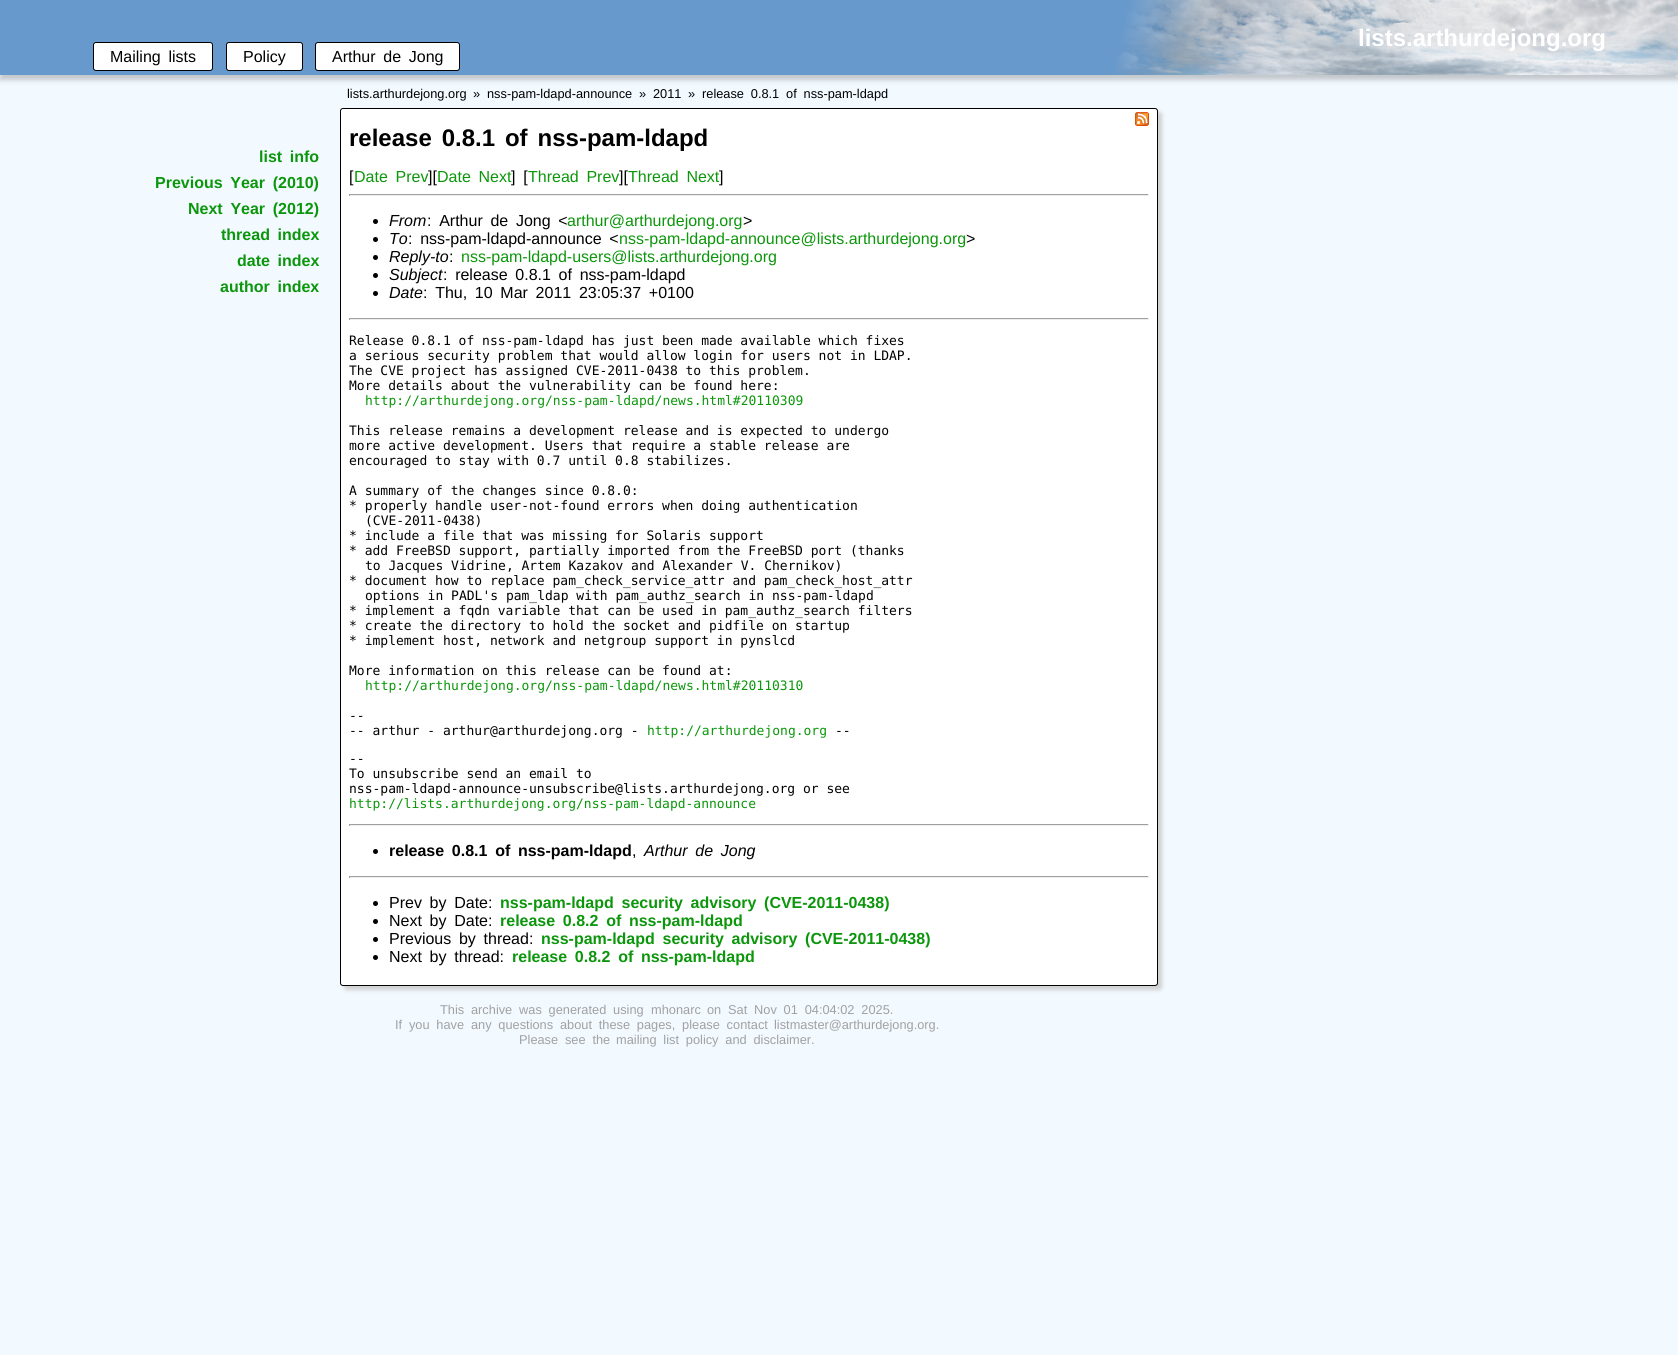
import math
import cairocffi as cairo

surface = cairo.ImageSurface(cairo.FORMAT_RGB24, 1678, 1355)
ctx = cairo.Context(surface)
options = cairo.FontOptions()
options.set_hint_metrics(cairo.HINT_METRICS_OFF)
options.set_hint_style(cairo.HINT_STYLE_NONE)
ctx.set_font_options(options)
ctx.set_miter_limit(4)


def rgb(r, g, b):
    ctx.set_source_rgb(r / 255, g / 255, b / 255)


def face(family, size, italic, bold):
    ctx.select_font_face(family, cairo.FONT_SLANT_ITALIC if italic else cairo.FONT_SLANT_NORMAL, cairo.FONT_WEIGHT_BOLD if bold else cairo.FONT_WEIGHT_NORMAL)
    ctx.set_font_size(size)


def label(x, y, s):
    ctx.move_to(x, y)
    ctx.show_text(s)


def tracked(x, y, s, letter, word):
    ctx.move_to(x, y)
    for ch in s:
        ctx.show_text(ch)
        ctx.rel_move_to(letter + word * (ch == ' '), 0)


def rect(x, y, w, h):
    ctx.rectangle(x, y, w, h)
    ctx.fill()


def rrect(x, y, w, h, r):
    ctx.new_sub_path()
    for i, (u, v) in enumerate([(x + w - r, y + h - r), (x + r, y + h - r), (x + r, y + r), (x + w - r, y + r)]):
        ctx.arc(u, v, r, i * math.pi / 2, (i + 1) * math.pi / 2)
    ctx.close_path()


def soft_shadow(x, y, w, h, r, blur, alpha):
    ctx.push_group_with_content(cairo.CONTENT_ALPHA)
    ctx.set_operator(cairo.OPERATOR_SOURCE)
    for i in range(15, -16, -2):
        e = blur * i / 6
        if min(w, h) + 2 * e > 0:
            ctx.set_source_rgba(0, 0, 0, alpha * math.erfc((i - 1) / 8.5) / 2)
            rrect(x - e, y - e, w + 2 * e, h + 2 * e, max(0, min(r + e + blur * .6, min(w, h) / 2 + e)))
            ctx.fill()
    ctx.mask(ctx.pop_group())


def image(path, x, y, w, h):
    ctx.save()
    ctx.set_source_surface(cairo.ImageSurface.create_from_png(path), x, y)
    ctx.rectangle(x, y, w, h)
    ctx.fill()
    ctx.restore()


rgb(242, 249, 255)
ctx.paint()
rgb(194, 199, 204)
soft_shadow(0, 5, 1678, 75, 0, 2.5, 1)
rgb(103, 153, 204)
rect(0, 0, 1198, 75)
image('image0.png', 1116, 0, 562, 75)
face('Liberation Sans', 24, 0, 1)
rgb(255, 255, 255)
label(1358, 46, 'lists.arthurdejong.org')
rrect(93.5, 42.5, 119, 28, 2.5)
ctx.fill_preserve()
rgb(0, 0, 0)
ctx.set_line_width(1)
ctx.stroke()
face('Liberation Sans', 16, 0, 0)
tracked(110, 62, 'Mailing lists', 0, 3.25)
rgb(255, 255, 255)
rrect(226.5, 42.5, 76, 28, 2.5)
ctx.fill_preserve()
rgb(0, 0, 0)
ctx.stroke()
label(243, 62, 'Policy')
rgb(255, 255, 255)
rrect(315.5, 42.5, 144, 28, 2.5)
ctx.fill_preserve()
rgb(0, 0, 0)
ctx.stroke()
tracked(332, 62, 'Arthur de Jong', 0, 3.25)
face('Liberation Sans', 12.8, 0, 0)
label(347, 98, 'lists.arthurdejong.org')
label(473, 98, '»')
label(487, 98, 'nss-pam-ldapd-announce')
label(639, 98, '»')
label(653, 98, '2011')
label(688, 98, '»')
tracked(702, 98, 'release 0.8.1 of nss-pam-ldapd', 0, 3.25)
face('Liberation Sans', 16, 0, 1)
rgb(11, 150, 11)
tracked(259, 162, 'list info', 0, 3.25)
tracked(155, 188, 'Previous Year (2010)', 0, 3.25)
tracked(188, 214, 'Next Year (2012)', 0, 3.25)
tracked(221, 240, 'thread index', 0, 3.25)
tracked(237, 266, 'date index', 0, 3.25)
tracked(220, 292, 'author index', 0, 3.25)
rgb(208, 208, 208)
soft_shadow(344, 112, 818, 878, 3, 2, 1)
rgb(255, 255, 255)
rrect(340.5, 108.5, 817, 877, 2.5)
ctx.fill_preserve()
rgb(0, 0, 0)
ctx.stroke()
image('image1.png', 1135, 112, 14, 14)
face('Liberation Sans', 24, 0, 1)
tracked(349, 146, 'release 0.8.1 of nss-pam-ldapd', 0, 3.25)
face('Liberation Sans', 16, 0, 0)
label(349, 182, '[')
rgb(11, 150, 11)
tracked(354, 182, 'Date Prev', 0, 3.25)
rgb(0, 0, 0)
label(428, 182, '][')
rgb(11, 150, 11)
tracked(437, 182, 'Date Next', 0, 3.25)
rgb(0, 0, 0)
tracked(511, 182, '] [', 0, 3.25)
rgb(11, 150, 11)
tracked(528, 182, 'Thread Prev', 0, 3.25)
rgb(0, 0, 0)
label(619, 182, '][')
rgb(11, 150, 11)
tracked(628, 182, 'Thread Next', 0, 3.25)
rgb(0, 0, 0)
label(719, 182, ']')
rgb(159, 159, 159)
rect(349, 194, 800, 1)
rgb(238, 238, 238)
rect(1148, 194, 1, 2)
rect(349, 195, 800, 1)
rgb(159, 159, 159)
rect(349, 194, 1, 2)
rgb(0, 0, 0)
ctx.new_path()
ctx.arc(375.5, 221.5, 2.5, 0, 2 * math.pi)
ctx.fill()
face('Liberation Sans', 16, 1, 0)
label(389, 226, 'From')
face('Liberation Sans', 16, 0, 0)
tracked(427, 226, ': Arthur de Jong <', 0, 3.25)
rgb(11, 150, 11)
label(567, 226, 'arthur@arthurdejong.org')
rgb(0, 0, 0)
label(743, 226, '>')
ctx.new_path()
ctx.arc(375.5, 239.5, 2.5, 0, 2 * math.pi)
ctx.fill()
face('Liberation Sans', 16, 1, 0)
label(389, 244, 'To')
face('Liberation Sans', 16, 0, 0)
tracked(408, 244, ': nss-pam-ldapd-announce <', 0, 3.25)
rgb(11, 150, 11)
label(619, 244, 'nss-pam-ldapd-announce@lists.arthurdejong.org')
rgb(0, 0, 0)
label(966, 244, '>')
ctx.new_path()
ctx.arc(375.5, 257.5, 2.5, 0, 2 * math.pi)
ctx.fill()
face('Liberation Sans', 16, 1, 0)
label(389, 262, 'Reply-to')
face('Liberation Sans', 16, 0, 0)
label(449, 262, ':')
rgb(11, 150, 11)
label(461, 262, 'nss-pam-ldapd-users@lists.arthurdejong.org')
rgb(0, 0, 0)
ctx.new_path()
ctx.arc(375.5, 275.5, 2.5, 0, 2 * math.pi)
ctx.fill()
face('Liberation Sans', 16, 1, 0)
label(389, 280, 'Subject')
face('Liberation Sans', 16, 0, 0)
tracked(443, 280, ': release 0.8.1 of nss-pam-ldapd', 0, 3.25)
ctx.new_path()
ctx.arc(375.5, 293.5, 2.5, 0, 2 * math.pi)
ctx.fill()
face('Liberation Sans', 16, 1, 0)
label(389, 298, 'Date')
face('Liberation Sans', 16, 0, 0)
tracked(423, 298, ': Thu, 10 Mar 2011 23:05:37 +0100', 0, 3.25)
rgb(159, 159, 159)
rect(349, 318, 800, 1)
rgb(238, 238, 238)
rect(1148, 318, 1, 2)
rect(349, 319, 800, 1)
rgb(159, 159, 159)
rect(349, 318, 1, 2)
face('DejaVu Sans Mono', 13, 0, 0)
rgb(0, 0, 0)
label(349, 345, 'Release 0.8.1 of nss-pam-ldapd has just been made available which fixes')
label(349, 360, 'a serious security problem that would allow login for users not in LDAP.')
label(349, 375, 'The CVE project has assigned CVE-2011-0438 to this problem.')
label(349, 390, 'More details about the vulnerability can be found here:')
rgb(11, 150, 11)
label(365, 405, 'http://arthurdejong.org/nss-pam-ldapd/news.html#20110309')
rgb(0, 0, 0)
label(349, 435, 'This release remains a development release and is expected to undergo')
label(349, 450, 'more active development. Users that require a stable release are')
label(349, 465, 'encouraged to stay with 0.7 until 0.8 stabilizes.')
label(349, 495, 'A summary of the changes since 0.8.0:')
label(349, 510, '* properly handle user-not-found errors when doing authentication')
label(365, 525, '(CVE-2011-0438)')
label(349, 540, '* include a file that was missing for Solaris support')
label(349, 555, '* add FreeBSD support, partially imported from the FreeBSD port (thanks')
label(365, 570, 'to Jacques Vidrine, Artem Kazakov and Alexander V. Chernikov)')
label(349, 585, '* document how to replace pam_check_service_attr and pam_check_host_attr')
label(365, 600, 'options in PADL\'s pam_ldap with pam_authz_search in nss-pam-ldapd')
label(349, 615, '* implement a fqdn variable that can be used in pam_authz_search filters')
label(349, 630, '* create the directory to hold the socket and pidfile on startup')
label(349, 645, '* implement host, network and netgroup support in pynslcd')
label(349, 675, 'More information on this release can be found at:')
rgb(11, 150, 11)
label(365, 690, 'http://arthurdejong.org/nss-pam-ldapd/news.html#20110310')
rgb(0, 0, 0)
label(349, 720, '--')
label(349, 735, '-- arthur - arthur@arthurdejong.org -')
rgb(11, 150, 11)
label(647, 735, 'http://arthurdejong.org')
rgb(0, 0, 0)
label(835, 735, '--')
label(349, 763, '--')
label(349, 778, 'To unsubscribe send an email to')
label(349, 793, 'nss-pam-ldapd-announce-unsubscribe@lists.arthurdejong.org or see')
rgb(11, 150, 11)
label(349, 808, 'http://lists.arthurdejong.org/nss-pam-ldapd-announce')
rgb(159, 159, 159)
rect(349, 824, 800, 1)
rgb(238, 238, 238)
rect(1148, 824, 1, 2)
rect(349, 825, 800, 1)
rgb(159, 159, 159)
rect(349, 824, 1, 2)
rgb(0, 0, 0)
ctx.new_path()
ctx.arc(375.5, 851.5, 2.5, 0, 2 * math.pi)
ctx.fill()
face('Liberation Sans', 16, 0, 1)
tracked(389, 856, 'release 0.8.1 of nss-pam-ldapd', 0, 3.25)
face('Liberation Sans', 16, 1, 0)
tracked(644, 856, 'Arthur de Jong', 0, 3.25)
face('Liberation Sans', 16, 0, 0)
label(632, 856, ',')
rgb(159, 159, 159)
rect(349, 876, 800, 1)
rgb(238, 238, 238)
rect(1148, 876, 1, 2)
rect(349, 877, 800, 1)
rgb(159, 159, 159)
rect(349, 876, 1, 2)
rgb(0, 0, 0)
ctx.new_path()
ctx.arc(375.5, 903.5, 2.5, 0, 2 * math.pi)
ctx.fill()
tracked(389, 908, 'Prev by Date:', 0, 3.25)
face('Liberation Sans', 16, 0, 1)
rgb(11, 150, 11)
tracked(500, 908, 'nss-pam-ldapd security advisory (CVE-2011-0438)', 0, 3.25)
rgb(0, 0, 0)
ctx.new_path()
ctx.arc(375.5, 921.5, 2.5, 0, 2 * math.pi)
ctx.fill()
face('Liberation Sans', 16, 0, 0)
tracked(389, 926, 'Next by Date:', 0, 3.25)
face('Liberation Sans', 16, 0, 1)
rgb(11, 150, 11)
tracked(500, 926, 'release 0.8.2 of nss-pam-ldapd', 0, 3.25)
rgb(0, 0, 0)
ctx.new_path()
ctx.arc(375.5, 939.5, 2.5, 0, 2 * math.pi)
ctx.fill()
face('Liberation Sans', 16, 0, 0)
tracked(389, 944, 'Previous by thread:', 0, 3.25)
face('Liberation Sans', 16, 0, 1)
rgb(11, 150, 11)
tracked(541, 944, 'nss-pam-ldapd security advisory (CVE-2011-0438)', 0, 3.25)
rgb(0, 0, 0)
ctx.new_path()
ctx.arc(375.5, 957.5, 2.5, 0, 2 * math.pi)
ctx.fill()
face('Liberation Sans', 16, 0, 0)
tracked(389, 962, 'Next by thread:', 0, 3.25)
face('Liberation Sans', 16, 0, 1)
rgb(11, 150, 11)
tracked(512, 962, 'release 0.8.2 of nss-pam-ldapd', 0, 3.25)
face('Liberation Sans', 12.8, 0, 0)
rgb(161, 161, 161)
tracked(440, 1014, 'This archive was generated using', 0, 3.25)
label(651, 1014, 'mhonarc')
tracked(707, 1014, 'on Sat Nov 01 04:04:02 2025.', 0, 3.25)
tracked(395, 1029, 'If you have any questions about these pages, please contact', 0, 3.25)
label(774, 1029, 'listmaster@arthurdejong.org.')
tracked(519, 1044, 'Please see the', 0, 3.25)
tracked(616, 1044, 'mailing list policy and disclaimer', 0, 3.25)
label(811, 1044, '.')
surface.write_to_png('render.png')
